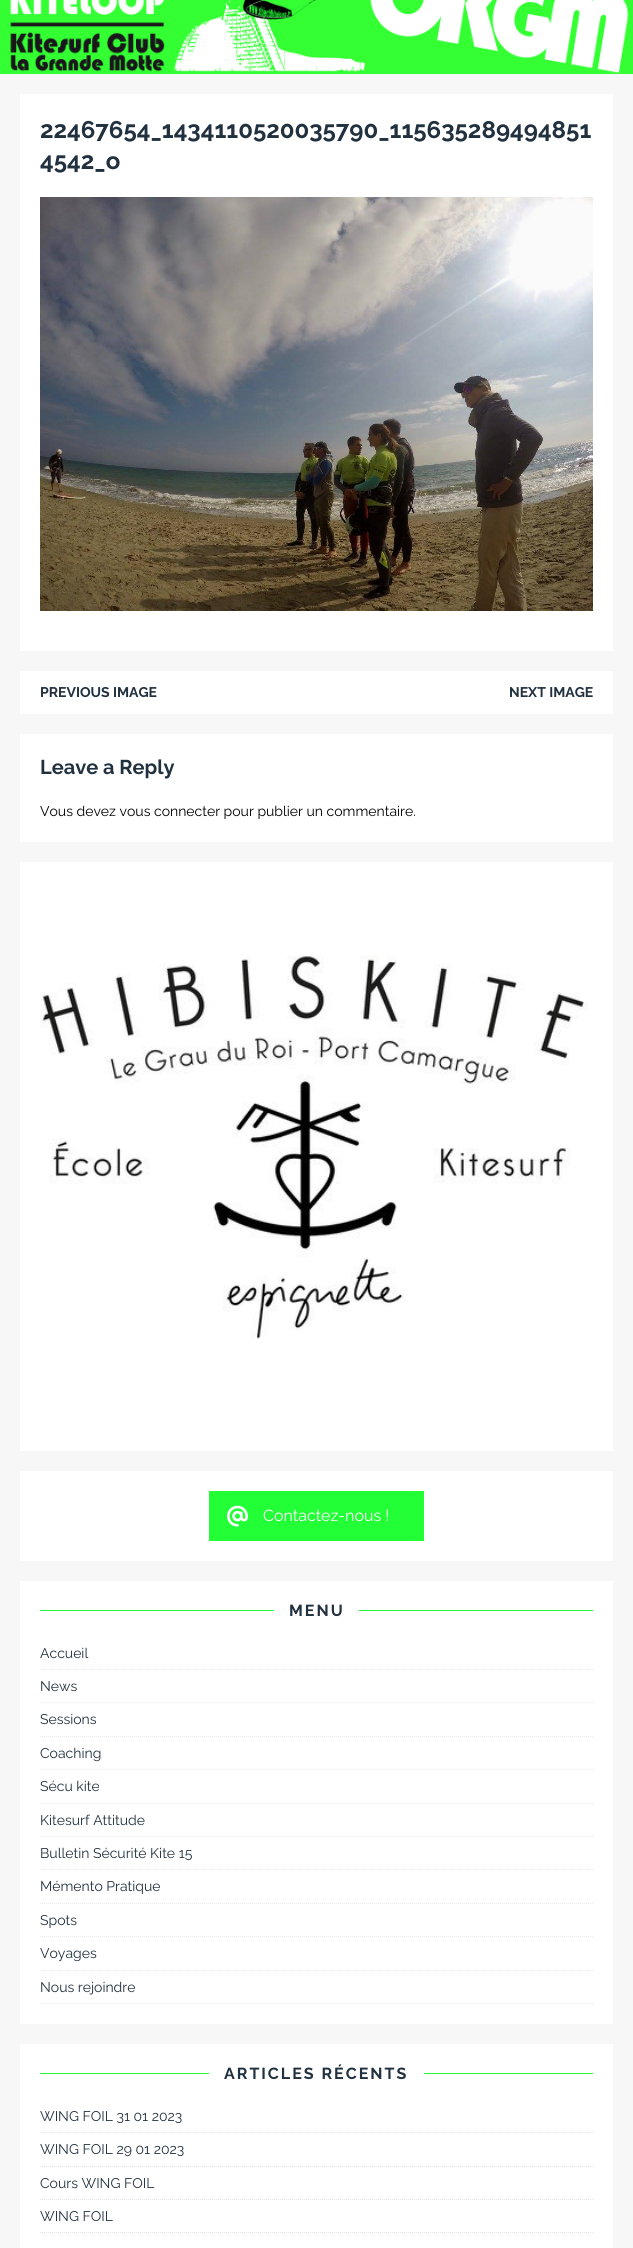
import math
import cairocffi as cairo

surface = cairo.ImageSurface(cairo.FORMAT_RGB24, 633, 2248)
ctx = cairo.Context(surface)
options = cairo.FontOptions()
options.set_hint_metrics(cairo.HINT_METRICS_OFF)
options.set_hint_style(cairo.HINT_STYLE_NONE)
ctx.set_font_options(options)
ctx.set_miter_limit(4)


def rgb(r, g, b):
    ctx.set_source_rgb(r / 255, g / 255, b / 255)


def face(family, size, italic, bold):
    ctx.select_font_face(family, cairo.FONT_SLANT_ITALIC if italic else cairo.FONT_SLANT_NORMAL, cairo.FONT_WEIGHT_BOLD if bold else cairo.FONT_WEIGHT_NORMAL)
    ctx.set_font_size(size)


def label(x, y, s):
    ctx.move_to(x, y)
    ctx.show_text(s)


def tracked(x, y, s, letter, word):
    ctx.move_to(x, y)
    for ch in s:
        ctx.show_text(ch)
        ctx.rel_move_to(letter + word * (ch == ' '), 0)


def rect(x, y, w, h):
    ctx.rectangle(x, y, w, h)
    ctx.fill()


def image(path, x, y, w, h):
    ctx.save()
    ctx.set_source_surface(cairo.ImageSurface.create_from_png(path), x, y)
    ctx.rectangle(x, y, w, h)
    ctx.fill()
    ctx.restore()


rgb(247, 247, 247)
ctx.paint()
image('image0.png', 0, 0, 633, 74)
rgb(255, 255, 255)
rect(20, 94, 593, 557)
face('Raleway', 24, 0, 1)
rgb(34, 49, 63)
label(40, 138, '22467654_1434110520035790_115635289494851')
label(40, 169, '4542_o')
image('image1.png', 40, 197, 553, 414)
rgb(255, 255, 255)
rect(20, 671, 593, 43)
face('Raleway', 14, 0, 1)
rgb(34, 49, 63)
label(40, 697, 'PREVIOUS IMAGE')
label(509, 697, 'NEXT IMAGE')
rgb(255, 255, 255)
rect(20, 734, 593, 108)
face('Raleway', 20, 0, 1)
rgb(34, 49, 63)
label(40, 774, 'Leave a Reply')
face('Raleway', 14, 0, 0)
rgb(0, 0, 0)
label(40, 816, 'Vous devez vous connecter pour publier un commentaire.')
rgb(255, 255, 255)
rect(20, 862, 593, 589)
image('image2.png', 40, 955, 548, 384)
rect(20, 1471, 593, 90)
rgb(34, 255, 54)
rect(209, 1491, 215, 50)
image('image3.png', 227, 1505, 21, 22)
face('Raleway', 16, 0, 0)
rgb(255, 255, 255)
label(263, 1521, 'Contactez-nous !')
rect(20, 1581, 593, 443)
rgb(34, 255, 54)
rect(40, 1610, 234, 1)
face('Raleway', 16, 0, 1)
rgb(34, 49, 63)
tracked(289, 1616, 'MENU', 2, 0)
rgb(34, 255, 54)
rect(359, 1610, 234, 1)
ctx.new_path()
ctx.move_to(40, 1669.5)
ctx.line_to(593, 1669.5)
rgb(235, 235, 235)
ctx.set_line_width(1)
ctx.set_dash([1, 1])
ctx.stroke()
face('Raleway', 14, 0, 0)
rgb(34, 49, 63)
label(40, 1658, 'Accueil')
ctx.new_path()
ctx.move_to(40, 1702.5)
ctx.line_to(593, 1702.5)
rgb(235, 235, 235)
ctx.stroke()
rgb(34, 49, 63)
label(40, 1691, 'News')
ctx.new_path()
ctx.move_to(40, 1736.5)
ctx.line_to(593, 1736.5)
rgb(235, 235, 235)
ctx.stroke()
rgb(34, 49, 63)
label(40, 1724, 'Sessions')
ctx.new_path()
ctx.move_to(40, 1769.5)
ctx.line_to(593, 1769.5)
rgb(235, 235, 235)
ctx.stroke()
rgb(34, 49, 63)
label(40, 1758, 'Coaching')
ctx.new_path()
ctx.move_to(40, 1903.5)
ctx.line_to(593, 1903.5)
rgb(235, 235, 235)
ctx.stroke()
rgb(34, 49, 63)
label(40, 1791, 'Sécu kite')
ctx.new_path()
ctx.move_to(40, 1803.5)
ctx.line_to(593, 1803.5)
rgb(235, 235, 235)
ctx.stroke()
rgb(34, 49, 63)
label(40, 1825, 'Kitesurf Attitude')
ctx.new_path()
ctx.move_to(40, 1836.5)
ctx.line_to(593, 1836.5)
rgb(235, 235, 235)
ctx.stroke()
rgb(34, 49, 63)
label(40, 1858, 'Bulletin Sécurité Kite 15')
ctx.new_path()
ctx.move_to(40, 1869.5)
ctx.line_to(593, 1869.5)
rgb(235, 235, 235)
ctx.stroke()
rgb(34, 49, 63)
label(40, 1891, 'Mémento Pratique')
ctx.new_path()
ctx.move_to(40, 1936.5)
ctx.line_to(593, 1936.5)
rgb(235, 235, 235)
ctx.stroke()
rgb(34, 49, 63)
label(40, 1925, 'Spots')
ctx.new_path()
ctx.move_to(40, 1970.5)
ctx.line_to(593, 1970.5)
rgb(235, 235, 235)
ctx.stroke()
rgb(34, 49, 63)
label(40, 1958, 'Voyages')
ctx.new_path()
ctx.move_to(40, 2003.5)
ctx.line_to(593, 2003.5)
rgb(235, 235, 235)
ctx.stroke()
rgb(34, 49, 63)
label(40, 1992, 'Nous rejoindre')
rgb(255, 255, 255)
rect(20, 2044, 593, 204)
rgb(34, 255, 54)
rect(40, 2073, 169, 1)
face('Raleway', 16, 0, 1)
rgb(34, 49, 63)
tracked(224, 2079, 'ARTICLES RÉCENTS', 2, 0)
rgb(34, 255, 54)
rect(424, 2073, 169, 1)
ctx.new_path()
ctx.move_to(40, 2132.5)
ctx.line_to(593, 2132.5)
rgb(229, 229, 229)
ctx.stroke()
face('Raleway', 14, 0, 0)
rgb(34, 49, 63)
label(40, 2121, 'WING FOIL 31 01 2023')
ctx.new_path()
ctx.move_to(40, 2166.5)
ctx.line_to(593, 2166.5)
rgb(229, 229, 229)
ctx.stroke()
rgb(34, 49, 63)
label(40, 2154, 'WING FOIL 29 01 2023')
ctx.new_path()
ctx.move_to(40, 2199.5)
ctx.line_to(593, 2199.5)
rgb(229, 229, 229)
ctx.stroke()
rgb(34, 49, 63)
label(40, 2188, 'Cours WING FOIL')
ctx.new_path()
ctx.move_to(40, 2232.5)
ctx.line_to(593, 2232.5)
rgb(229, 229, 229)
ctx.stroke()
rgb(34, 49, 63)
label(40, 2221, 'WING FOIL')
surface.write_to_png('render.png')
